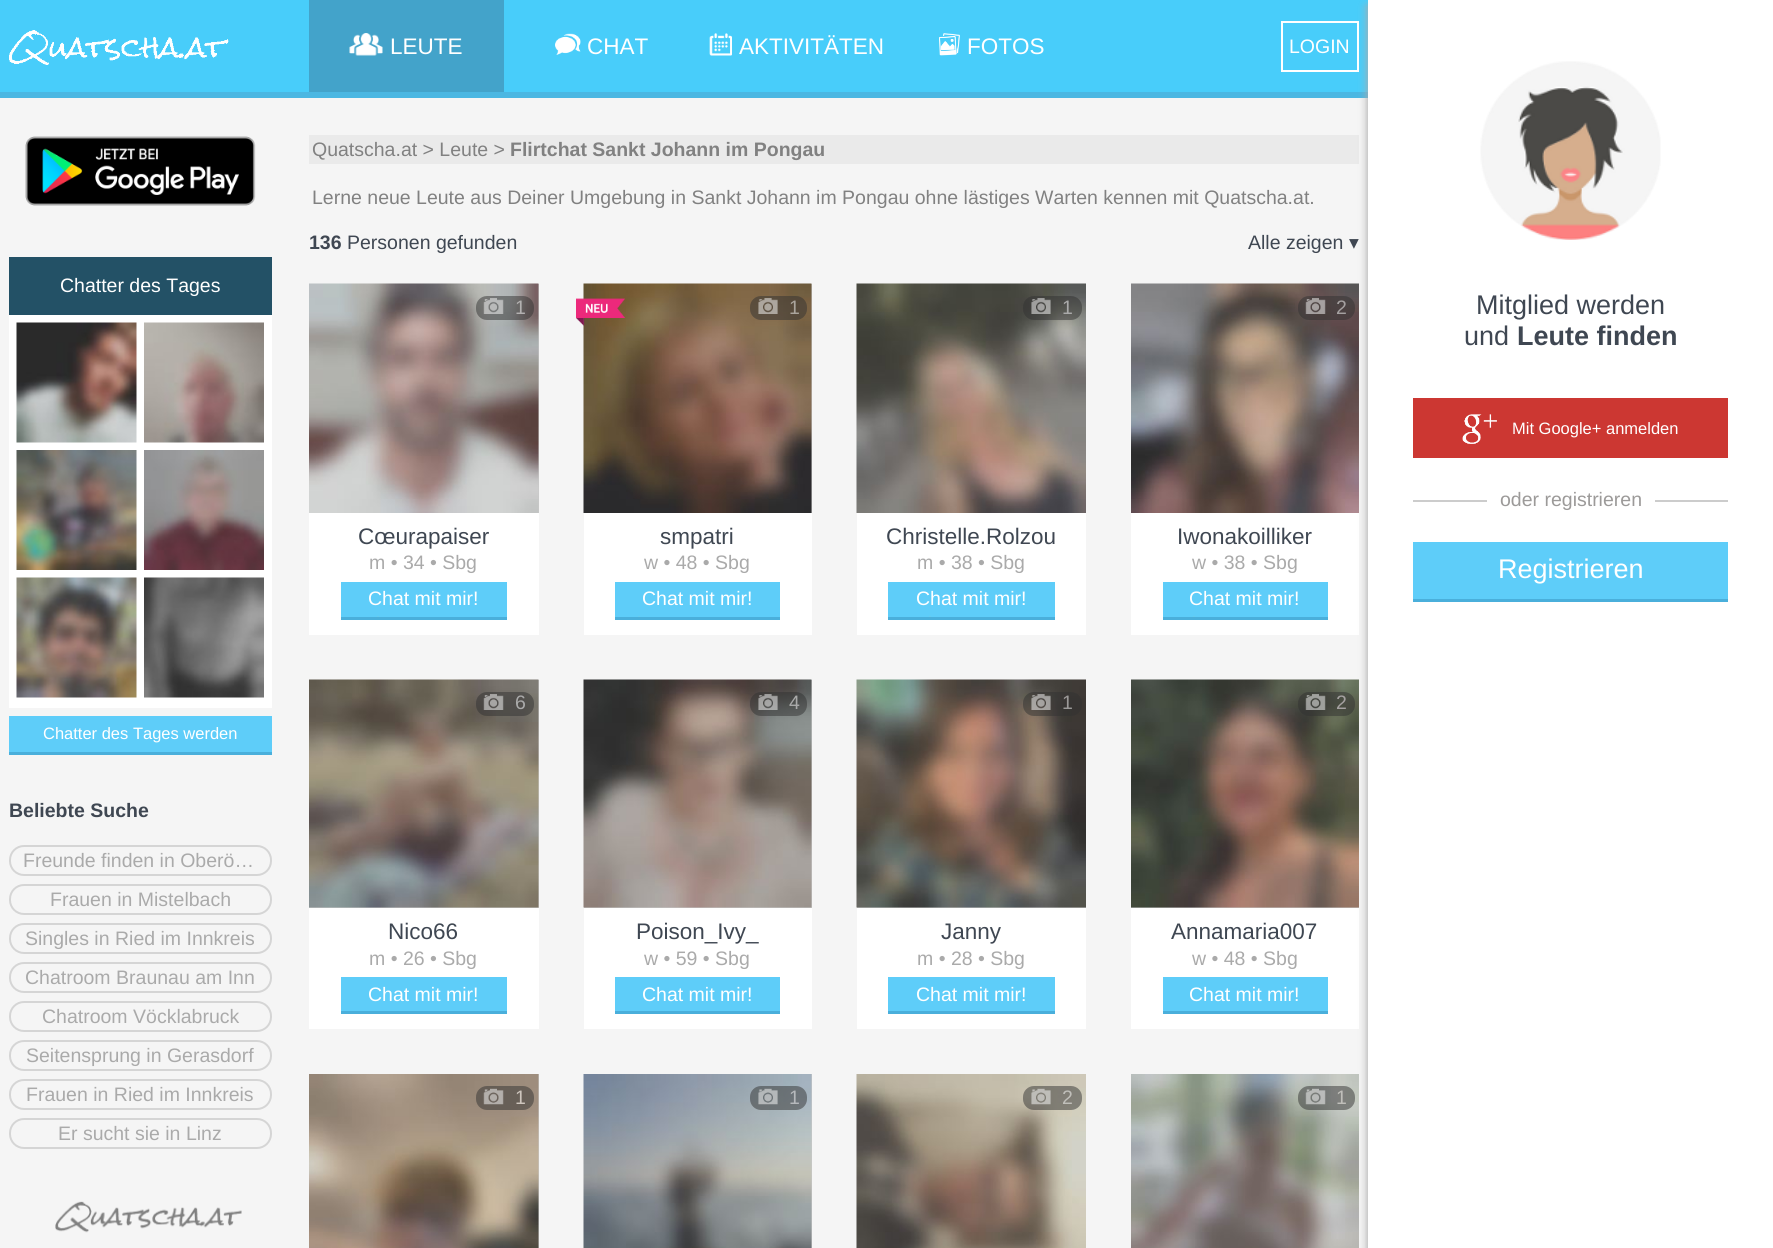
import math
import cairocffi as cairo

surface = cairo.ImageSurface(cairo.FORMAT_RGB24, 1773, 1248)
ctx = cairo.Context(surface)
options = cairo.FontOptions()
options.set_hint_metrics(cairo.HINT_METRICS_OFF)
options.set_hint_style(cairo.HINT_STYLE_NONE)
ctx.set_font_options(options)
ctx.set_miter_limit(4)


def rgb(r, g, b):
    ctx.set_source_rgb(r / 255, g / 255, b / 255)


def face(family, size, italic, bold):
    ctx.select_font_face(family, cairo.FONT_SLANT_ITALIC if italic else cairo.FONT_SLANT_NORMAL, cairo.FONT_WEIGHT_BOLD if bold else cairo.FONT_WEIGHT_NORMAL)
    ctx.set_font_size(size)


def label(x, y, s):
    ctx.move_to(x, y)
    ctx.show_text(s)


def rect(x, y, w, h):
    ctx.rectangle(x, y, w, h)
    ctx.fill()


def rrect(x, y, w, h, r):
    ctx.new_sub_path()
    for i, (u, v) in enumerate([(x + w - r, y + h - r), (x + r, y + h - r), (x + r, y + r), (x + w - r, y + r)]):
        ctx.arc(u, v, r, i * math.pi / 2, (i + 1) * math.pi / 2)
    ctx.close_path()


def soft_shadow(x, y, w, h, r, blur, alpha):
    ctx.push_group_with_content(cairo.CONTENT_ALPHA)
    ctx.set_operator(cairo.OPERATOR_SOURCE)
    for i in range(15, -16, -2):
        e = blur * i / 6
        if min(w, h) + 2 * e > 0:
            ctx.set_source_rgba(0, 0, 0, alpha * math.erfc((i - 1) / 8.5) / 2)
            rrect(x - e, y - e, w + 2 * e, h + 2 * e, max(0, min(r + e + blur * .6, min(w, h) / 2 + e)))
            ctx.fill()
    ctx.mask(ctx.pop_group())


def image(path, x, y, w, h):
    ctx.save()
    ctx.set_source_surface(cairo.ImageSurface.create_from_png(path), x, y)
    ctx.rectangle(x, y, w, h)
    ctx.fill()
    ctx.restore()


rgb(245, 245, 245)
ctx.paint()
rgb(72, 205, 250)
rect(0, 0, 1368, 92)
rgb(75, 183, 226)
rect(0, 92, 1368, 6)
image('image0.png', 9, 30, 220, 35)
rgb(67, 163, 202)
rect(309, 0, 195, 92)
image('image1.png', 349, 33, 34, 23)
face('Liberation Sans', 22.5, 0, 0)
rgb(255, 255, 255)
label(390, 54, 'LEUTE')
image('image2.png', 555, 33, 26, 22)
label(587, 54, 'CHAT')
image('image3.png', 709, 33, 23, 23)
label(739, 54, 'AKTIVITÄTEN')
image('image4.png', 939, 33, 21, 23)
label(967, 54, 'FOTOS')
ctx.rectangle(1282, 22, 76, 49)
ctx.stroke()
face('Liberation Sans', 19.5, 0, 0)
label(1289, 53, 'LOGIN')
image('image5.png', 25, 136, 231, 70)
rgb(35, 81, 102)
rect(9, 257, 263, 58)
rgb(255, 255, 255)
label(60, 292, 'Chatter des Tages')
rect(9, 315, 263, 393)
image('image6.png', 16, 322, 121, 121)
image('image7.png', 144, 322, 120, 121)
image('image8.png', 16, 450, 121, 120)
image('image9.png', 144, 450, 120, 120)
image('image10.png', 16, 577, 121, 121)
image('image11.png', 144, 577, 120, 121)
rgb(94, 205, 249)
rect(9, 716, 263, 36)
rgb(74, 175, 219)
rect(9, 752, 263, 3)
face('Liberation Sans', 16.5, 0, 0)
rgb(255, 255, 255)
label(43, 739, 'Chatter des Tages werden')
face('Liberation Sans', 19.5, 0, 1)
rgb(63, 71, 82)
label(9, 817, 'Beliebte Suche')
rrect(10, 846, 261, 29, 14)
rgb(213, 213, 213)
ctx.stroke()
face('Liberation Sans', 19.5, 0, 0)
rgb(170, 170, 170)
label(23, 867, 'Freunde finden in Oberö…')
rrect(10, 885, 261, 29, 14)
rgb(213, 213, 213)
ctx.stroke()
rgb(170, 170, 170)
label(50, 906, 'Frauen in Mistelbach')
rrect(10, 924, 261, 29, 14)
rgb(213, 213, 213)
ctx.stroke()
rgb(170, 170, 170)
label(25, 945, 'Singles in Ried im Innkreis')
rrect(10, 963, 261, 29, 14)
rgb(213, 213, 213)
ctx.stroke()
rgb(170, 170, 170)
label(25, 984, 'Chatroom Braunau am Inn')
rrect(10, 1002, 261, 29, 14)
rgb(213, 213, 213)
ctx.stroke()
rgb(170, 170, 170)
label(42, 1023, 'Chatroom Vöcklabruck')
rrect(10, 1041, 261, 29, 14)
rgb(213, 213, 213)
ctx.stroke()
rgb(170, 170, 170)
label(26, 1062, 'Seitensprung in Gerasdorf')
rrect(10, 1080, 261, 29, 14)
rgb(213, 213, 213)
ctx.stroke()
rgb(170, 170, 170)
label(26, 1101, 'Frauen in Ried im Innkreis')
rrect(10, 1119, 261, 29, 14)
rgb(213, 213, 213)
ctx.stroke()
rgb(170, 170, 170)
label(58, 1140, 'Er sucht sie in Linz')
image('image12.png', 55, 1201, 187, 32)
rgb(234, 234, 234)
rect(309, 135, 1050, 29)
rgb(129, 129, 129)
label(312, 156, 'Quatscha.at > Leute >')
face('Liberation Sans', 19.5, 0, 1)
label(510, 156, 'Flirtchat Sankt Johann im Pongau')
face('Liberation Sans', 19.5, 0, 0)
label(312, 204, 'Lerne neue Leute aus Deiner Umgebung in Sankt Johann im Pongau ohne lästiges Warten kennen mit Quatscha.at.')
face('Liberation Sans', 19.5, 0, 1)
rgb(63, 71, 82)
label(309, 249, '136')
face('Liberation Sans', 19.5, 0, 0)
label(347, 249, 'Personen gefunden')
label(1248, 249, 'Alle zeigen')
face('DejaVu Sans', 19.5, 0, 0)
label(1349, 249, '▾')
rgb(201, 201, 201)
rect(538, 284, 1, 229)
image('image13.png', 309, 283, 230, 230)
ctx.set_source_rgba(0.2, 0.2, 0.2, 0.5)
rrect(476, 296, 58, 24, 11)
ctx.fill()
image('image14.png', 483, 298, 21, 16)
face('Liberation Sans', 19.5, 0, 0)
rgb(179, 177, 177)
label(515, 314, '1')
rgb(255, 255, 255)
rect(309, 513, 230, 122)
face('Liberation Sans', 22.5, 0, 0)
rgb(63, 71, 82)
label(358, 544, 'Cœurapaiser')
face('Liberation Sans', 19.5, 0, 0)
rgb(170, 170, 170)
label(369, 569, 'm • 34 • Sbg')
rgb(94, 205, 249)
rect(341, 582, 166, 35)
rgb(74, 175, 219)
rect(341, 617, 166, 3)
rgb(255, 255, 255)
label(368, 605, 'Chat mit mir!')
ctx.save()
ctx.rectangle(341, 582, 166, 35)
ctx.clip()
rgb(248, 189, 72)
ctx.new_path()
ctx.move_to(384, 628.5)
ctx.line_to(372, 628.5)
ctx.line_to(378, 616.5)
ctx.close_path()
ctx.fill()
ctx.restore()
rgb(201, 201, 201)
rect(811, 284, 1, 229)
image('image15.png', 583, 283, 229, 230)
image('image16.png', 576, 298, 50, 28)
ctx.set_source_rgba(0.2, 0.2, 0.2, 0.5)
rrect(750, 296, 57, 24, 11)
ctx.fill()
image('image17.png', 758, 298, 20, 16)
rgb(171, 165, 157)
label(789, 314, '1')
rgb(255, 255, 255)
rect(584, 513, 228, 122)
face('Liberation Sans', 22.5, 0, 0)
rgb(63, 71, 82)
label(660, 544, 'smpatri')
face('Liberation Sans', 19.5, 0, 0)
rgb(170, 170, 170)
label(644, 569, 'w • 48 • Sbg')
rgb(94, 205, 249)
rect(615, 582, 165, 35)
rgb(74, 175, 219)
rect(615, 617, 165, 3)
rgb(255, 255, 255)
label(642, 605, 'Chat mit mir!')
ctx.save()
ctx.rectangle(615, 582, 165, 35)
ctx.clip()
rgb(248, 189, 72)
ctx.new_path()
ctx.move_to(645, 628.5)
ctx.line_to(633, 628.5)
ctx.line_to(639, 616.5)
ctx.close_path()
ctx.fill()
ctx.restore()
image('image18.png', 856, 283, 230, 230)
ctx.set_source_rgba(0.2, 0.2, 0.2, 0.5)
rrect(1023, 296, 59, 24, 11)
ctx.fill()
image('image19.png', 1031, 298, 20, 16)
rgb(170, 170, 170)
label(1062, 314, '1')
rgb(255, 255, 255)
rect(857, 513, 229, 122)
face('Liberation Sans', 22.5, 0, 0)
rgb(63, 71, 82)
label(886, 544, 'Christelle.Rolzou')
face('Liberation Sans', 19.5, 0, 0)
rgb(170, 170, 170)
label(917, 569, 'm • 38 • Sbg')
rgb(94, 205, 249)
rect(888, 582, 167, 35)
rgb(74, 175, 219)
rect(888, 617, 167, 3)
rgb(255, 255, 255)
label(916, 605, 'Chat mit mir!')
ctx.save()
ctx.rectangle(888, 582, 167, 35)
ctx.clip()
rgb(248, 189, 72)
ctx.new_path()
ctx.move_to(936, 628.5)
ctx.line_to(924, 628.5)
ctx.line_to(930, 616.5)
ctx.close_path()
ctx.fill()
ctx.restore()
image('image20.png', 1131, 283, 228, 230)
ctx.set_source_rgba(0.2, 0.2, 0.2, 0.5)
rrect(1298, 296, 57, 24, 11)
ctx.fill()
image('image21.png', 1305, 298, 21, 16)
rgb(165, 161, 161)
label(1336, 314, '2')
rgb(255, 255, 255)
rect(1131, 513, 228, 122)
face('Liberation Sans', 22.5, 0, 0)
rgb(63, 71, 82)
label(1177, 544, 'Iwonakoilliker')
face('Liberation Sans', 19.5, 0, 0)
rgb(170, 170, 170)
label(1192, 569, 'w • 38 • Sbg')
rgb(94, 205, 249)
rect(1163, 582, 165, 35)
rgb(74, 175, 219)
rect(1163, 617, 165, 3)
rgb(255, 255, 255)
label(1189, 605, 'Chat mit mir!')
ctx.save()
ctx.rectangle(1163, 582, 165, 35)
ctx.clip()
rgb(248, 189, 72)
ctx.new_path()
ctx.move_to(1200, 628.5)
ctx.line_to(1188, 628.5)
ctx.line_to(1194, 616.5)
ctx.close_path()
ctx.fill()
ctx.restore()
rgb(201, 201, 201)
rect(309, 680, 230, 228)
image('image22.png', 309, 679, 230, 229)
ctx.set_source_rgba(0.2, 0.2, 0.2, 0.5)
rrect(476, 692, 58, 24, 11)
ctx.fill()
image('image23.png', 483, 694, 21, 16)
rgb(170, 170, 170)
label(515, 709, '6')
rgb(255, 255, 255)
rect(309, 908, 230, 121)
face('Liberation Sans', 22.5, 0, 0)
rgb(63, 71, 82)
label(388, 939, 'Nico66')
face('Liberation Sans', 19.5, 0, 0)
rgb(170, 170, 170)
label(369, 965, 'm • 26 • Sbg')
rgb(94, 205, 249)
rect(341, 977, 166, 34)
rgb(74, 175, 219)
rect(341, 1011, 166, 3)
rgb(255, 255, 255)
label(368, 1001, 'Chat mit mir!')
rgb(201, 201, 201)
rect(584, 680, 228, 228)
image('image24.png', 583, 679, 229, 229)
ctx.set_source_rgba(0.2, 0.2, 0.2, 0.5)
rrect(750, 692, 57, 24, 11)
ctx.fill()
image('image25.png', 758, 694, 20, 16)
rgb(170, 170, 170)
label(789, 709, '4')
rgb(255, 255, 255)
rect(584, 908, 228, 121)
face('Liberation Sans', 22.5, 0, 0)
rgb(63, 71, 82)
label(636, 939, 'Poison_Ivy_')
face('Liberation Sans', 19.5, 0, 0)
rgb(170, 170, 170)
label(644, 965, 'w • 59 • Sbg')
rgb(94, 205, 249)
rect(615, 977, 165, 34)
rgb(74, 175, 219)
rect(615, 1011, 165, 3)
rgb(255, 255, 255)
label(642, 1001, 'Chat mit mir!')
rgb(201, 201, 201)
rect(857, 907, 229, 1)
image('image26.png', 856, 679, 230, 229)
ctx.set_source_rgba(0.2, 0.2, 0.2, 0.5)
rrect(1023, 692, 59, 24, 11)
ctx.fill()
image('image27.png', 1031, 694, 20, 16)
rgb(156, 154, 153)
label(1062, 709, '1')
rgb(255, 255, 255)
rect(857, 908, 229, 121)
face('Liberation Sans', 22.5, 0, 0)
rgb(63, 71, 82)
label(941, 939, 'Janny')
face('Liberation Sans', 19.5, 0, 0)
rgb(170, 170, 170)
label(917, 965, 'm • 28 • Sbg')
rgb(94, 205, 249)
rect(888, 977, 167, 34)
rgb(74, 175, 219)
rect(888, 1011, 167, 3)
rgb(255, 255, 255)
label(916, 1001, 'Chat mit mir!')
rgb(201, 201, 201)
rect(1131, 907, 228, 1)
image('image28.png', 1131, 679, 228, 229)
ctx.set_source_rgba(0.2, 0.2, 0.2, 0.5)
rrect(1298, 692, 57, 24, 11)
ctx.fill()
image('image29.png', 1305, 694, 21, 16)
rgb(165, 161, 161)
label(1336, 709, '2')
rgb(255, 255, 255)
rect(1131, 908, 228, 121)
face('Liberation Sans', 22.5, 0, 0)
rgb(63, 71, 82)
label(1171, 939, 'Annamaria007')
face('Liberation Sans', 19.5, 0, 0)
rgb(170, 170, 170)
label(1192, 965, 'w • 48 • Sbg')
rgb(94, 205, 249)
rect(1163, 977, 165, 34)
rgb(74, 175, 219)
rect(1163, 1011, 165, 3)
rgb(255, 255, 255)
label(1189, 1001, 'Chat mit mir!')
rgb(201, 201, 201)
rect(538, 1074, 1, 174)
image('image30.png', 309, 1074, 230, 174)
ctx.set_source_rgba(0.2, 0.2, 0.2, 0.5)
rrect(476, 1086, 58, 24, 11)
ctx.fill()
image('image31.png', 483, 1088, 21, 17)
rgb(206, 198, 190)
label(515, 1104, '1')
rgb(201, 201, 201)
rect(811, 1074, 1, 174)
image('image32.png', 583, 1074, 229, 174)
ctx.set_source_rgba(0.2, 0.2, 0.2, 0.5)
rrect(750, 1086, 57, 24, 11)
ctx.fill()
image('image33.png', 758, 1088, 20, 17)
rgb(182, 185, 188)
label(789, 1104, '1')
image('image34.png', 856, 1074, 230, 174)
ctx.set_source_rgba(0.2, 0.2, 0.2, 0.5)
rrect(1023, 1086, 59, 24, 11)
ctx.fill()
image('image35.png', 1031, 1088, 20, 17)
rgb(192, 191, 186)
label(1062, 1104, '2')
image('image36.png', 1131, 1074, 228, 174)
ctx.set_source_rgba(0.2, 0.2, 0.2, 0.5)
rrect(1298, 1086, 57, 24, 11)
ctx.fill()
image('image37.png', 1305, 1088, 21, 17)
rgb(192, 191, 186)
label(1336, 1104, '1')
rgb(170, 170, 170)
soft_shadow(1367, 6, 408, 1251, 0, 4, 1)
rgb(255, 255, 255)
rect(1368, 0, 405, 1248)
image('image38.png', 1480, 61, 181, 179)
face('Liberation Sans', 27, 0, 0)
rgb(63, 71, 82)
label(1476, 314, 'Mitglied werden')
label(1464, 345, 'und')
face('Liberation Sans', 27, 0, 1)
label(1517, 345, 'Leute finden')
rgb(204, 55, 50)
rect(1413, 398, 315, 60)
image('image39.png', 1462, 414, 35, 30)
face('Liberation Sans', 16.5, 0, 0)
rgb(255, 255, 255)
label(1512, 434, 'Mit Google+ anmelden')
rgb(204, 204, 204)
rect(1413, 500, 74, 2)
face('Liberation Sans', 19.5, 0, 0)
rgb(156, 154, 153)
label(1500, 506, 'oder registrieren')
rgb(204, 204, 204)
rect(1655, 500, 73, 2)
rgb(94, 205, 249)
rect(1413, 542, 315, 57)
rgb(74, 175, 219)
rect(1413, 599, 315, 3)
face('Liberation Sans', 27, 0, 0)
rgb(255, 255, 255)
label(1498, 578, 'Registrieren')
surface.write_to_png('render.png')
